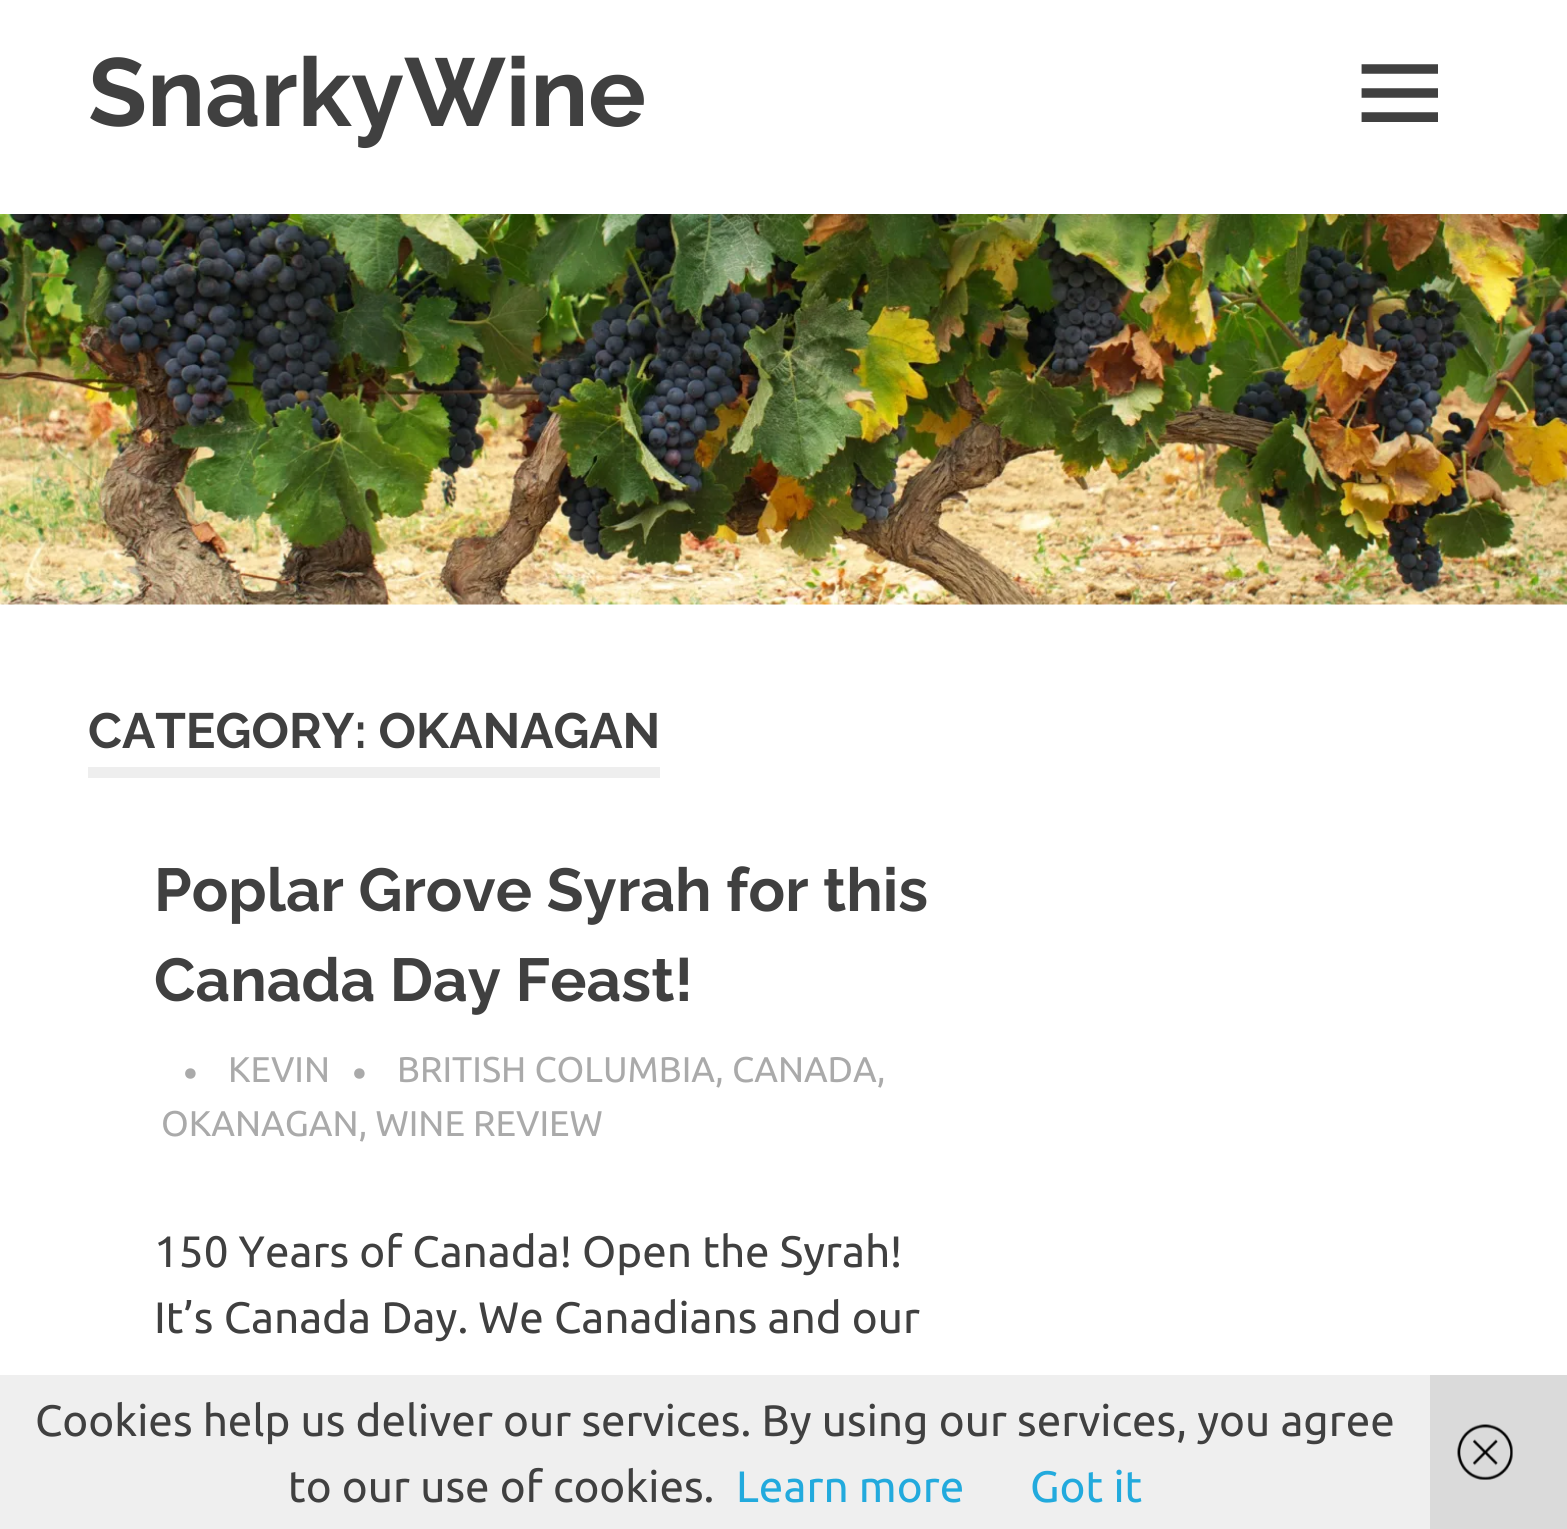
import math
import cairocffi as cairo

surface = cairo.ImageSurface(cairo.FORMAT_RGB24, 1567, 1529)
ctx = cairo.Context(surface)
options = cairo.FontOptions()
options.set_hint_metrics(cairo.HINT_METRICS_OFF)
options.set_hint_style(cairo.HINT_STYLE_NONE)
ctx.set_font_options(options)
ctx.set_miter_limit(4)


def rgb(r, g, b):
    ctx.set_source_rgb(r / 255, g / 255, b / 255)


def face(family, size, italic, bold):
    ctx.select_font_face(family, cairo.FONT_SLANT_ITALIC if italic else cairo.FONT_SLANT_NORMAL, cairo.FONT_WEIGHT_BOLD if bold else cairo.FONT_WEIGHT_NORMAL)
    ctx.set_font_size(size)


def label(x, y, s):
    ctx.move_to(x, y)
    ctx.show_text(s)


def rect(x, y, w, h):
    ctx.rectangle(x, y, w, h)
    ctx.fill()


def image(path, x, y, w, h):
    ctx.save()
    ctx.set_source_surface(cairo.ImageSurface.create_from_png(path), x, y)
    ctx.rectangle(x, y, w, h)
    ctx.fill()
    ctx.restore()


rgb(255, 255, 255)
ctx.paint()
face('Raleway', 96.25, 0, 1)
rgb(64, 64, 64)
label(88, 126, 'SnarkyWine')
image('image0.png', 1361, 64, 77, 58)
image('image1.png', 0, 214, 1567, 391)
rgb(238, 238, 238)
rect(88, 767, 572, 11)
face('Raleway', 49.5, 0, 1)
rgb(64, 64, 64)
label(88, 748, 'CATEGORY: OKANAGAN')
face('Raleway', 60.5, 0, 1)
label(154, 911, 'Poplar Grove Syrah for this')
label(154, 1001, 'Canada Day Feast!')
face('Ubuntu', 41, 0, 0)
rgb(170, 170, 170)
label(183, 1088, '•')
face('Ubuntu', 35.75, 0, 0)
label(228, 1082, 'KEVIN')
face('Ubuntu', 41, 0, 0)
label(352, 1088, '•')
face('Ubuntu', 35.75, 0, 0)
label(397, 1082, 'BRITISH COLUMBIA, CANADA,')
label(161, 1136, 'OKANAGAN, WINE REVIEW')
face('Ubuntu', 44, 0, 0)
rgb(64, 64, 64)
label(154, 1267, '150 Years of Canada! Open the Syrah!')
label(154, 1333, 'It’s Canada Day. We Canadians and our')
ctx.set_source_rgba(0.933, 0.933, 0.933, 0.9)
rect(0, 1375, 1430, 154)
rgb(64, 64, 64)
label(35, 1436, 'Cookies help us deliver our services. By using our services, you agree')
label(288, 1502, 'to our use of cookies.')
rgb(34, 170, 221)
label(736, 1502, 'Learn more')
label(1030, 1502, 'Got it')
rgb(218, 218, 218)
rect(1430, 1375, 137, 154)
image('image2.png', 1457, 1424, 56, 56)
surface.write_to_png('render.png')
